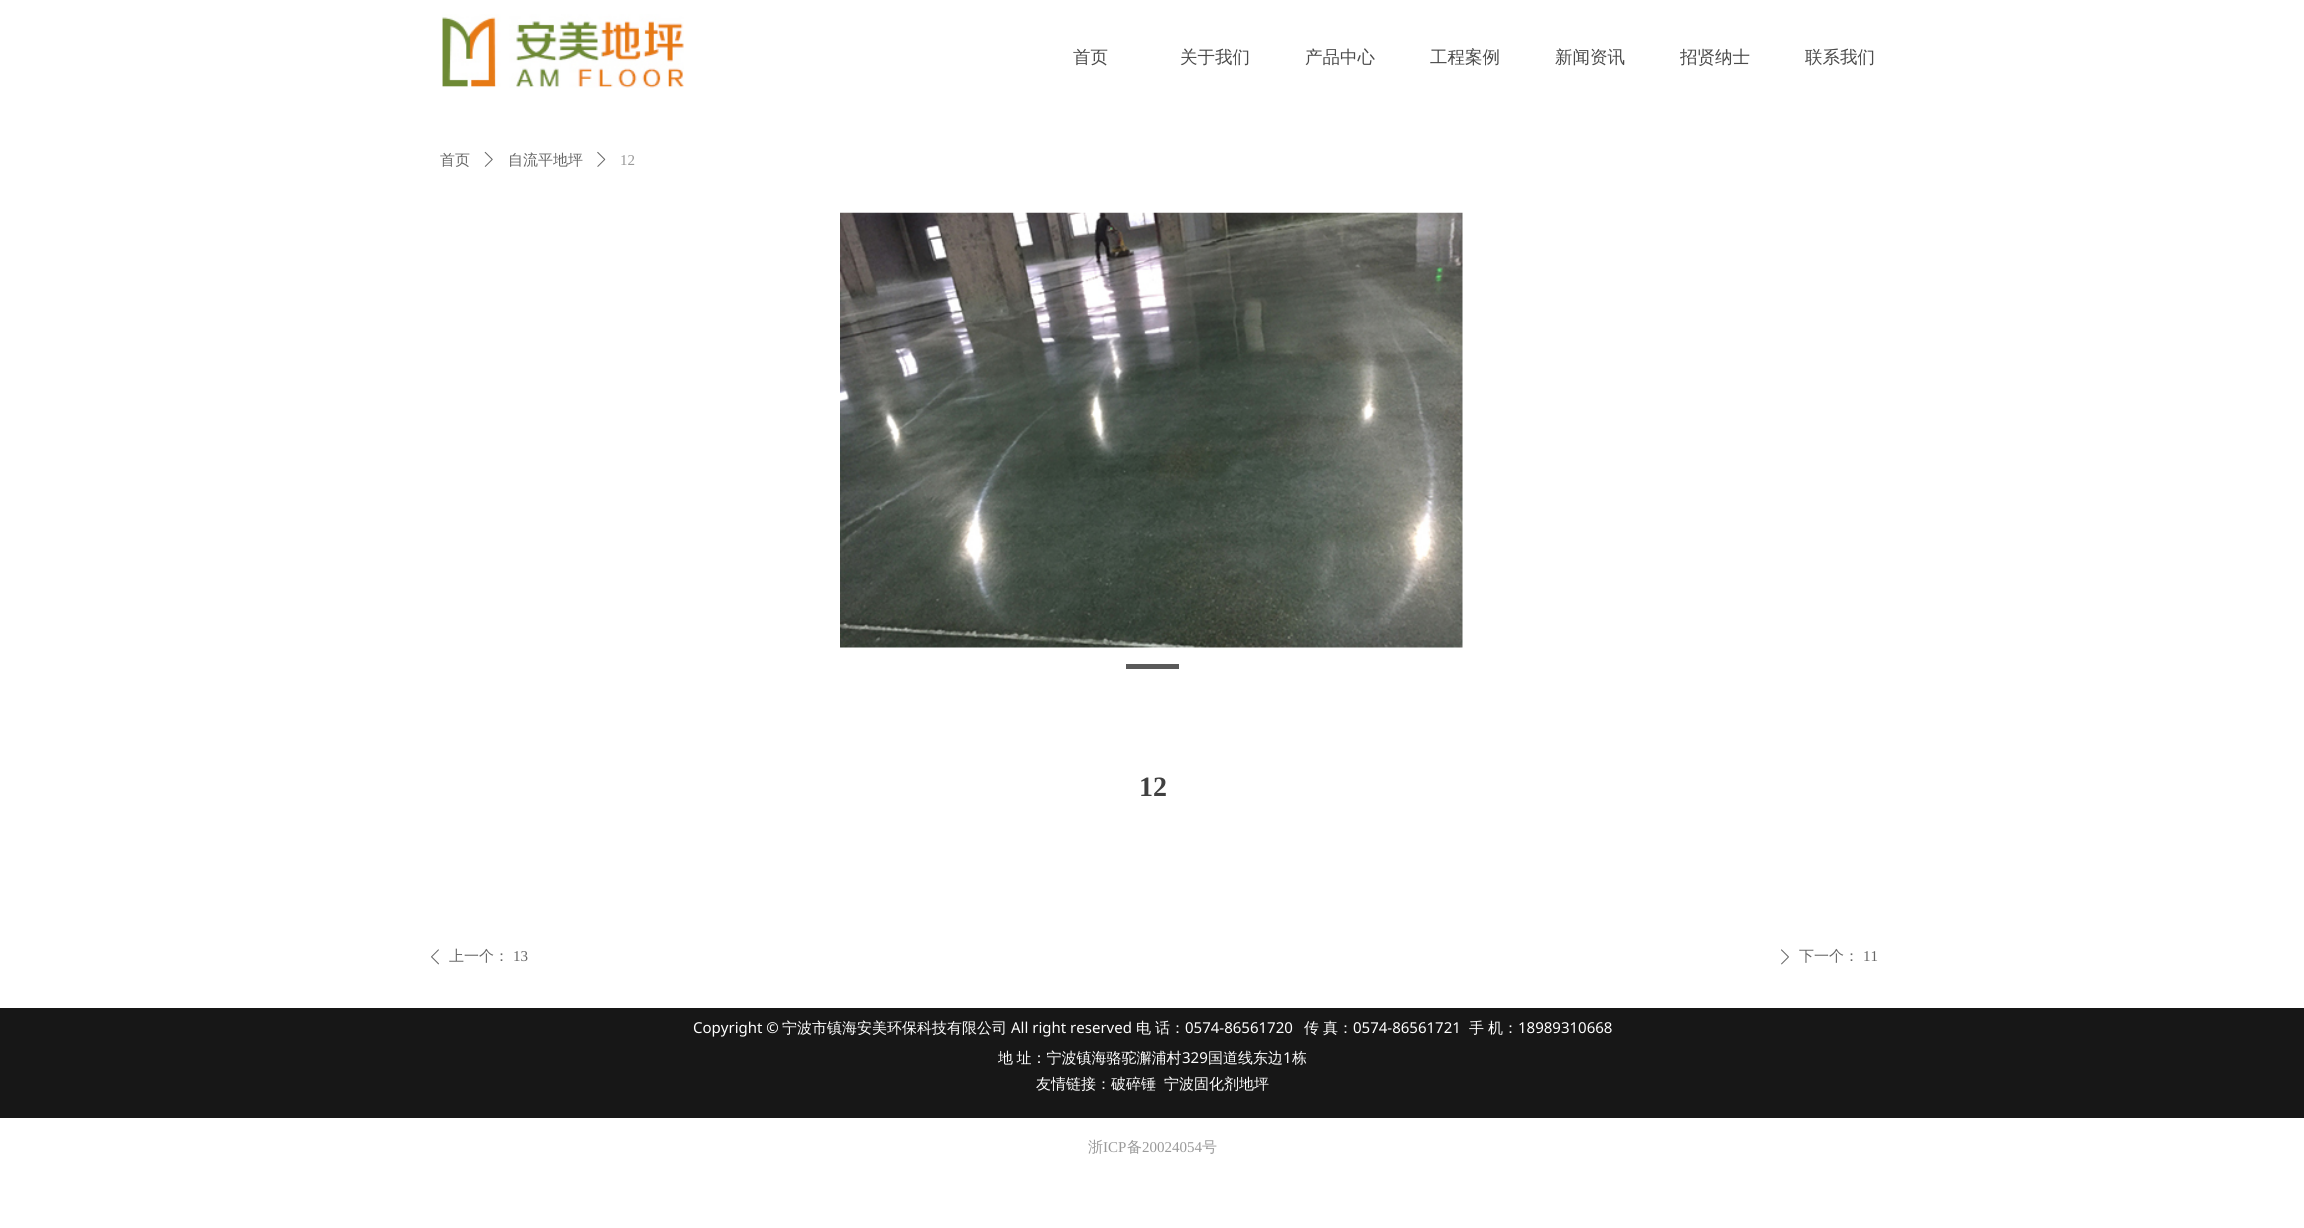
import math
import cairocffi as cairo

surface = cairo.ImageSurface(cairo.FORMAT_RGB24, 2304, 1228)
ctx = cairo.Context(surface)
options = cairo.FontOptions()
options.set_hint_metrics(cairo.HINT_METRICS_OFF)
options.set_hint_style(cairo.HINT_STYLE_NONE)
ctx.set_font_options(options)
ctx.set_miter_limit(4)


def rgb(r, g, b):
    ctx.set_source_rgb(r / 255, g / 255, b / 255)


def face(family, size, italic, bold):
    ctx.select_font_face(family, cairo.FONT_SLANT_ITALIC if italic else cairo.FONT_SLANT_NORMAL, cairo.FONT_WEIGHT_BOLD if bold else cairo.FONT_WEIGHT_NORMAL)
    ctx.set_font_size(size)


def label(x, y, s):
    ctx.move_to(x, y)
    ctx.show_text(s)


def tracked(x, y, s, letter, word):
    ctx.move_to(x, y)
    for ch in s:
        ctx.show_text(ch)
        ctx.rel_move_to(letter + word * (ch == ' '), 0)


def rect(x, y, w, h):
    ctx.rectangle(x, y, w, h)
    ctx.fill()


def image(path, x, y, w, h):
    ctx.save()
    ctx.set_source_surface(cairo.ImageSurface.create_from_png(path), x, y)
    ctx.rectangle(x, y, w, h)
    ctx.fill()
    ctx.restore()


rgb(255, 255, 255)
ctx.paint()
image('image0.png', 442, 14, 242, 74)
face('WenQuanYi Zen Hei Medium', 17.5, 0, 0)
rgb(74, 74, 74)
label(1073, 63, '首页')
label(1180, 63, '关于我们')
label(1305, 63, '产品中心')
label(1430, 63, '工程案例')
label(1555, 63, '新闻资讯')
label(1680, 63, '招贤纳士')
label(1805, 63, '联系我们')
face('WenQuanYi Zen Hei Medium', 15, 0, 0)
rgb(102, 102, 102)
label(440, 165, '首页')
image('image1.png', 484, 151, 9, 16)
label(508, 165, '自流平地坪')
image('image2.png', 597, 151, 9, 16)
face('Liberation Serif', 15, 0, 0)
rgb(153, 153, 153)
label(620, 165, '12')
image('image3.png', 840, 212, 623, 436)
rgb(90, 90, 90)
rect(1126, 664, 53, 5)
face('Liberation Serif', 28, 0, 1)
rgb(64, 64, 64)
label(1139, 796, '12')
image('image4.png', 431, 949, 8, 16)
face('WenQuanYi Zen Hei Medium', 15, 0, 0)
rgb(102, 102, 102)
label(449, 961, '上一个：')
face('Liberation Serif', 15, 0, 0)
label(513, 961, '13')
image('image5.png', 1781, 949, 8, 16)
face('WenQuanYi Zen Hei Medium', 15, 0, 0)
label(1799, 961, '下一个：')
face('Liberation Serif', 15, 0, 0)
label(1863, 961, '11')
rgb(23, 23, 23)
rect(0, 1008, 2304, 110)
face('Noto Sans', 15, 0, 0)
rgb(255, 255, 255)
label(693, 1033, 'Copyright ©')
face('WenQuanYi Zen Hei Medium', 15, 0, 0)
label(782, 1033, '宁波市镇海安美环保科技有限公司')
face('Noto Sans', 15, 0, 0)
label(1011, 1033, 'All right reserved')
face('WenQuanYi Zen Hei Medium', 15, 0, 0)
label(1136, 1033, '电')
label(1155, 1033, '话：')
face('Noto Sans', 15, 0, 0)
label(1185, 1033, '0574-86561720')
face('WenQuanYi Zen Hei Medium', 15, 0, 0)
label(1304, 1033, '传')
label(1323, 1033, '真：')
face('Noto Sans', 15, 0, 0)
label(1353, 1033, '0574-86561721')
face('WenQuanYi Zen Hei Medium', 15, 0, 0)
label(1469, 1033, '手')
label(1488, 1033, '机：')
face('Noto Sans', 15, 0, 0)
label(1518, 1033, '18989310668')
face('WenQuanYi Zen Hei Medium', 15, 0, 0)
tracked(998, 1063, '地 址：宁波镇海骆驼澥浦村', 0, -1)
face('Noto Sans', 15, 0, 0)
label(1182, 1063, '329')
face('WenQuanYi Zen Hei Medium', 15, 0, 0)
label(1208, 1063, '国道线东边')
face('Noto Sans', 15, 0, 0)
label(1283, 1063, '1')
face('WenQuanYi Zen Hei Medium', 15, 0, 0)
label(1292, 1063, '栋')
label(1036, 1089, '友情链接：破碎锤')
label(1164, 1089, '宁波固化剂地坪')
rgb(153, 153, 153)
label(1088, 1152, '浙')
face('Liberation Serif', 15, 0, 0)
label(1103, 1152, 'ICP')
face('WenQuanYi Zen Hei Medium', 15, 0, 0)
label(1127, 1152, '备')
face('Liberation Serif', 15, 0, 0)
label(1142, 1152, '20024054')
face('WenQuanYi Zen Hei Medium', 15, 0, 0)
label(1202, 1152, '号')
surface.write_to_png('render.png')
